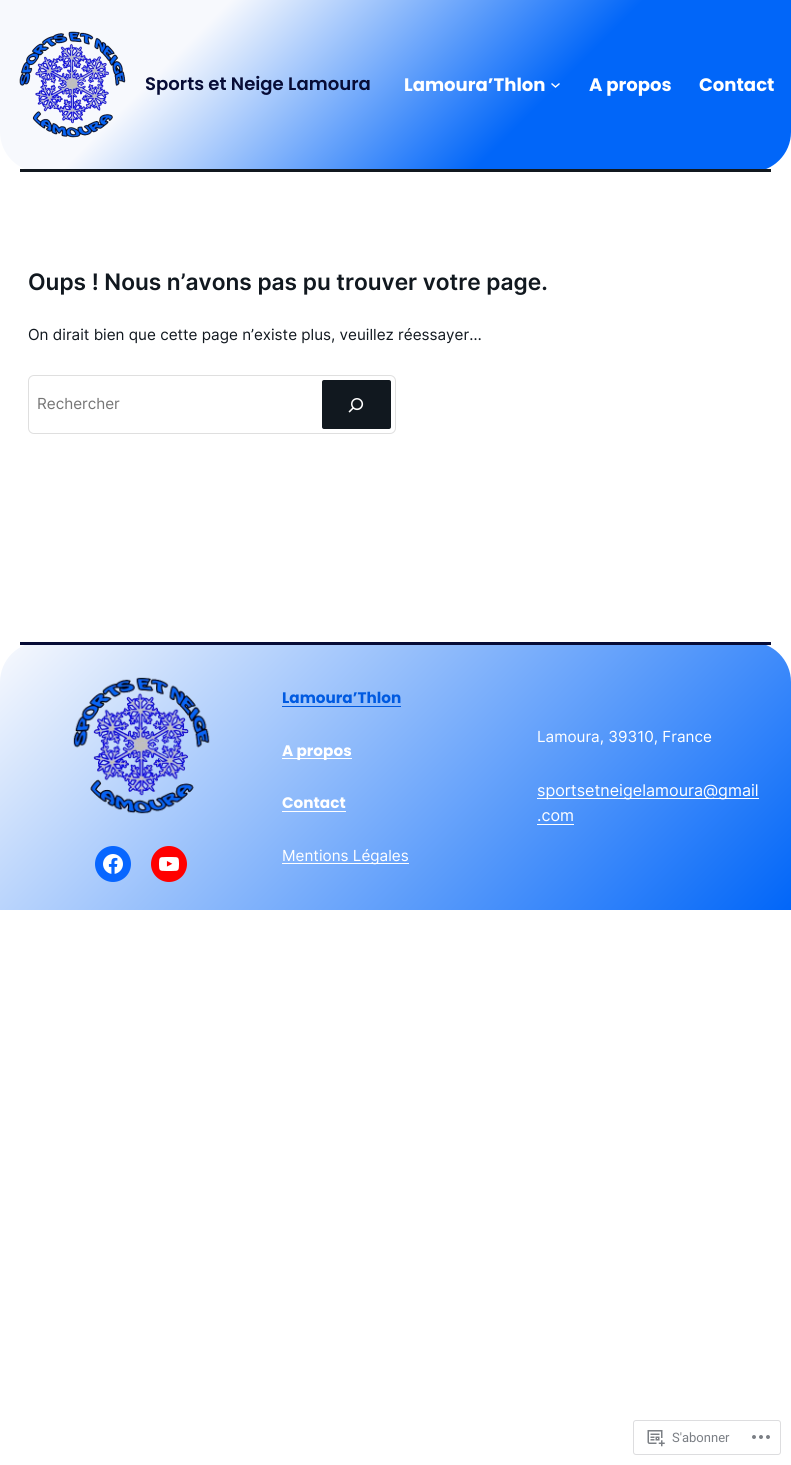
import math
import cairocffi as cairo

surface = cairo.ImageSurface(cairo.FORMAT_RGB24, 791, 1465)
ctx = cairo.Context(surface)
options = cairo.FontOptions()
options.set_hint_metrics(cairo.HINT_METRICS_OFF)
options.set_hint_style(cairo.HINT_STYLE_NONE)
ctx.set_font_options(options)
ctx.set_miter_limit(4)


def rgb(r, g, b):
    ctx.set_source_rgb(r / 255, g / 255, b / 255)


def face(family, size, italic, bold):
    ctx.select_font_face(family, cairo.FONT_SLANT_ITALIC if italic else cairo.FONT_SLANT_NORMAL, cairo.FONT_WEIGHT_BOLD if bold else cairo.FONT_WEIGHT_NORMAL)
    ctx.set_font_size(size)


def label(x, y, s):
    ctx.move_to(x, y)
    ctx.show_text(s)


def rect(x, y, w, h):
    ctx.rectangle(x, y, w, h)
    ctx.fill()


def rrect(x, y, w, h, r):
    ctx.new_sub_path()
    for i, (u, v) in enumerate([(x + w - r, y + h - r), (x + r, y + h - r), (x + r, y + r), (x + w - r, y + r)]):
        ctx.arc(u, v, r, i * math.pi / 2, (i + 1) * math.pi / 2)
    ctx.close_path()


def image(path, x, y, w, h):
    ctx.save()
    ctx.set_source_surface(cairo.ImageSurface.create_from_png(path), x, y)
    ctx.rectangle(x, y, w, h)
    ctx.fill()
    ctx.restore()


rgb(255, 255, 255)
ctx.paint()
ctx.save()
ctx.new_path()
ctx.move_to(0, 0)
ctx.line_to(791, 0)
ctx.line_to(791, 132)
ctx.curve_to(791, 154, 773, 172, 751, 172)
ctx.line_to(40, 172)
ctx.curve_to(18, 172, 0, 154, 0, 132)
ctx.close_path()
ctx.clip()
gradient = cairo.LinearGradient(155, -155, 636, 325)
gradient.add_color_stop_rgba(0.24, 0.969, 0.976, 0.992, 1)
gradient.add_color_stop_rgba(0.67, 0.004, 0.4, 0.976, 1)
ctx.set_source(gradient)
rect(0, 0, 791, 169)
ctx.restore()
rgb(17, 24, 31)
rect(20, 169, 751, 3)
image('image0.png', 19, 31, 107, 107)
face('Poppins SemiBold', 18.1, 0, 0)
rgb(7, 12, 54)
label(145, 90, 'Sports et Neige Lamoura')
face('Poppins', 18.1, 0, 1)
rgb(255, 255, 255)
label(404, 91, 'Lamoura’Thlon')
ctx.new_path()
ctx.move_to(551.5, 83.5)
ctx.line_to(555.5, 87)
ctx.line_to(559.5, 83.5)
ctx.set_line_width(1.4)
ctx.stroke()
label(589, 91, 'A propos')
label(699, 91, 'Contact')
face('Inter SemiBold', 22.7, 0, 0)
rgb(17, 24, 31)
label(28, 290, 'Oups ! Nous n’avons pas pu trouver votre page.')
face('Inter', 15.25, 0, 0)
label(28, 340, 'On dirait bien que cette page n’existe plus, veuillez réessayer…')
rrect(28.5, 375.5, 367, 58, 5.5)
rgb(223, 223, 223)
ctx.set_line_width(1)
ctx.stroke()
rgb(117, 117, 117)
label(37, 409, 'Rechercher')
rgb(17, 24, 31)
rrect(322, 380, 69, 49, 2)
ctx.fill()
image('image1.png', 348, 398, 16, 15)
ctx.save()
ctx.new_path()
ctx.move_to(40, 642)
ctx.line_to(751, 642)
ctx.curve_to(773, 642, 791, 660, 791, 682)
ctx.line_to(791, 910)
ctx.line_to(0, 910)
ctx.line_to(0, 682)
ctx.curve_to(0, 660, 18, 642, 40, 642)
ctx.close_path()
ctx.clip()
gradient = cairo.LinearGradient(131, 514, 660, 1042)
gradient.add_color_stop_rgba(0, 0.969, 0.976, 0.992, 1)
gradient.add_color_stop_rgba(1, 0.004, 0.4, 0.976, 1)
ctx.set_source(gradient)
rect(0, 645, 791, 265)
ctx.restore()
rgb(7, 12, 54)
rect(20, 642, 751, 3)
image('image2.png', 73, 677, 137, 137)
rgb(8, 102, 255)
ctx.arc(113, 864, 18, 0, 2 * math.pi)
ctx.fill()
image('image3.png', 103, 854, 20, 20)
rgb(255, 0, 0)
ctx.arc(169, 864, 18, 0, 2 * math.pi)
ctx.fill()
image('image4.png', 159, 857, 20, 14)
face('Poppins', 15.25, 0, 1)
rgb(0, 90, 225)
label(282, 703, 'Lamoura’Thlon')
rect(282, 706, 119, 1)
rgb(255, 255, 255)
rect(282, 758, 70, 1)
label(282, 756, 'A propos')
label(282, 808, 'Contact')
rect(282, 811, 64, 1)
rect(282, 863, 127, 1)
face('Inter', 15.25, 0, 0)
label(282, 861, 'Mentions Légales')
label(537, 742, 'Lamoura, 39310, France')
rect(537, 798, 222, 1)
face('Inter', 16.1, 0, 0)
label(537, 796, 'sportsetneigelamoura@gmail')
label(537, 821, '.com')
rect(537, 824, 37, 1)
rrect(633.5, 1420.5, 147, 34, 2.5)
rgb(221, 221, 223)
ctx.stroke()
image('image5.png', 647, 1430, 18, 17)
face('Roboto', 13, 0, 0)
rgb(123, 127, 133)
label(672, 1442, 'S\'abonner')
image('image6.png', 752, 1435, 18, 4)
surface.write_to_png('render.png')
